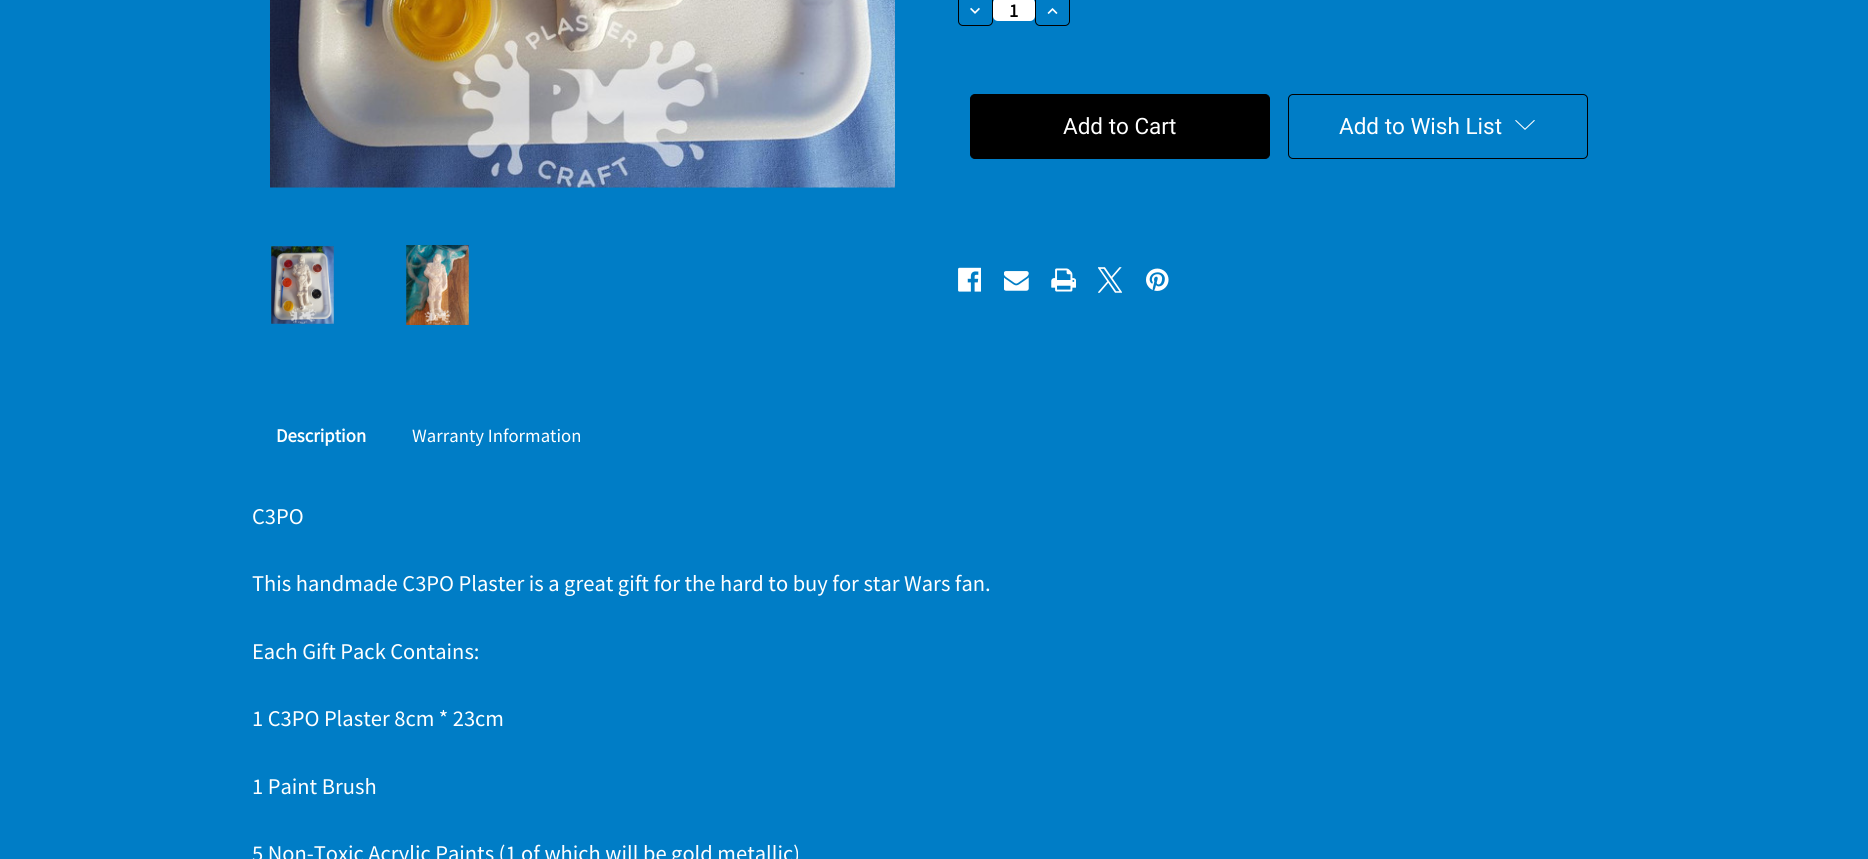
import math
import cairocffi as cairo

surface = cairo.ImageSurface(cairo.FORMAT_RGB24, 1868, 859)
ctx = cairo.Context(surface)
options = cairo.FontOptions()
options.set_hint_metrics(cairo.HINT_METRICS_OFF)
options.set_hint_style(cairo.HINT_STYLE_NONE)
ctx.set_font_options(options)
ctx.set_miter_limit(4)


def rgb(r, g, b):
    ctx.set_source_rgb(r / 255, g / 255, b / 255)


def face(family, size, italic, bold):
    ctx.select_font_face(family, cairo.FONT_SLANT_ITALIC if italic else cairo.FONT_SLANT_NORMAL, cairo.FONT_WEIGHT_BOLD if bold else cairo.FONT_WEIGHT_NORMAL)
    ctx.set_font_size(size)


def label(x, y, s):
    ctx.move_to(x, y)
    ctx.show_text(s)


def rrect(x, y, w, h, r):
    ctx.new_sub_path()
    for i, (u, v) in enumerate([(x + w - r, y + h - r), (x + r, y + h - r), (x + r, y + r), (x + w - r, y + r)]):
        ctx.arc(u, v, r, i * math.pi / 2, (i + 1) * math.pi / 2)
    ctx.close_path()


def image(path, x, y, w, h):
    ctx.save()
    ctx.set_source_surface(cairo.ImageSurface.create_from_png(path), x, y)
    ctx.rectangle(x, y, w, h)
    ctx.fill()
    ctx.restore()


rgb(0, 125, 198)
ctx.paint()
image('image0.png', 270, 0, 625, 188)
image('image1.png', 271, 246, 63, 78)
image('image2.png', 406, 245, 63, 80)
rrect(958.5, -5.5, 34, 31, 4.5)
rgb(0, 0, 0)
ctx.set_line_width(1)
ctx.stroke()
image('image3.png', 970, 7, 10, 7)
rgb(255, 255, 255)
rrect(993, -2, 42, 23, 5)
ctx.fill()
face('Source Sans Pro', 18.75, 0, 1)
rgb(0, 0, 0)
label(1009, 17, '1')
rrect(1035.5, -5.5, 34, 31, 4.5)
ctx.stroke()
image('image4.png', 1047, 8, 11, 6)
rrect(970.5, 94.5, 299, 64, 4.5)
ctx.fill_preserve()
ctx.stroke()
face('Roboto', 22.5, 0, 0)
rgb(255, 255, 255)
label(1063, 134, 'Add to Cart')
rrect(1288.5, 94.5, 299, 64, 4.5)
rgb(0, 0, 0)
ctx.stroke()
rgb(255, 255, 255)
label(1339, 134, 'Add to Wish List')
ctx.set_fill_rule(cairo.FILL_RULE_EVEN_ODD)
ctx.new_path()
ctx.move_to(1525, 128.5)
ctx.line_to(1534, 120)
ctx.line_to(1535, 120.5)
ctx.line_to(1525, 130)
ctx.line_to(1515, 120.5)
ctx.line_to(1516, 120)
ctx.close_path()
ctx.fill()
image('image5.png', 958, 267, 23, 25)
image('image6.png', 1004, 271, 25, 20)
image('image7.png', 1051, 268, 25, 24)
image('image8.png', 1098, 267, 24, 26)
image('image9.png', 1146, 268, 23, 23)
face('Source Sans Pro', 18.75, 0, 1)
label(276, 442, 'Description')
face('Source Sans Pro', 18.75, 0, 0)
label(412, 442, 'Warranty Information')
face('Source Sans Pro', 22.5, 0, 0)
label(252, 524, 'C3PO')
label(252, 591, 'This handmade C3PO Plaster is a great gift for the hard to buy for star Wars fan.')
label(252, 659, 'Each Gift Pack Contains:')
label(252, 726, '1 C3PO Plaster 8cm * 23cm')
label(252, 794, '1 Paint Brush')
label(252, 861, '5 Non-Toxic Acrylic Paints (1 of which will be gold metallic)')
surface.write_to_png('render.png')
